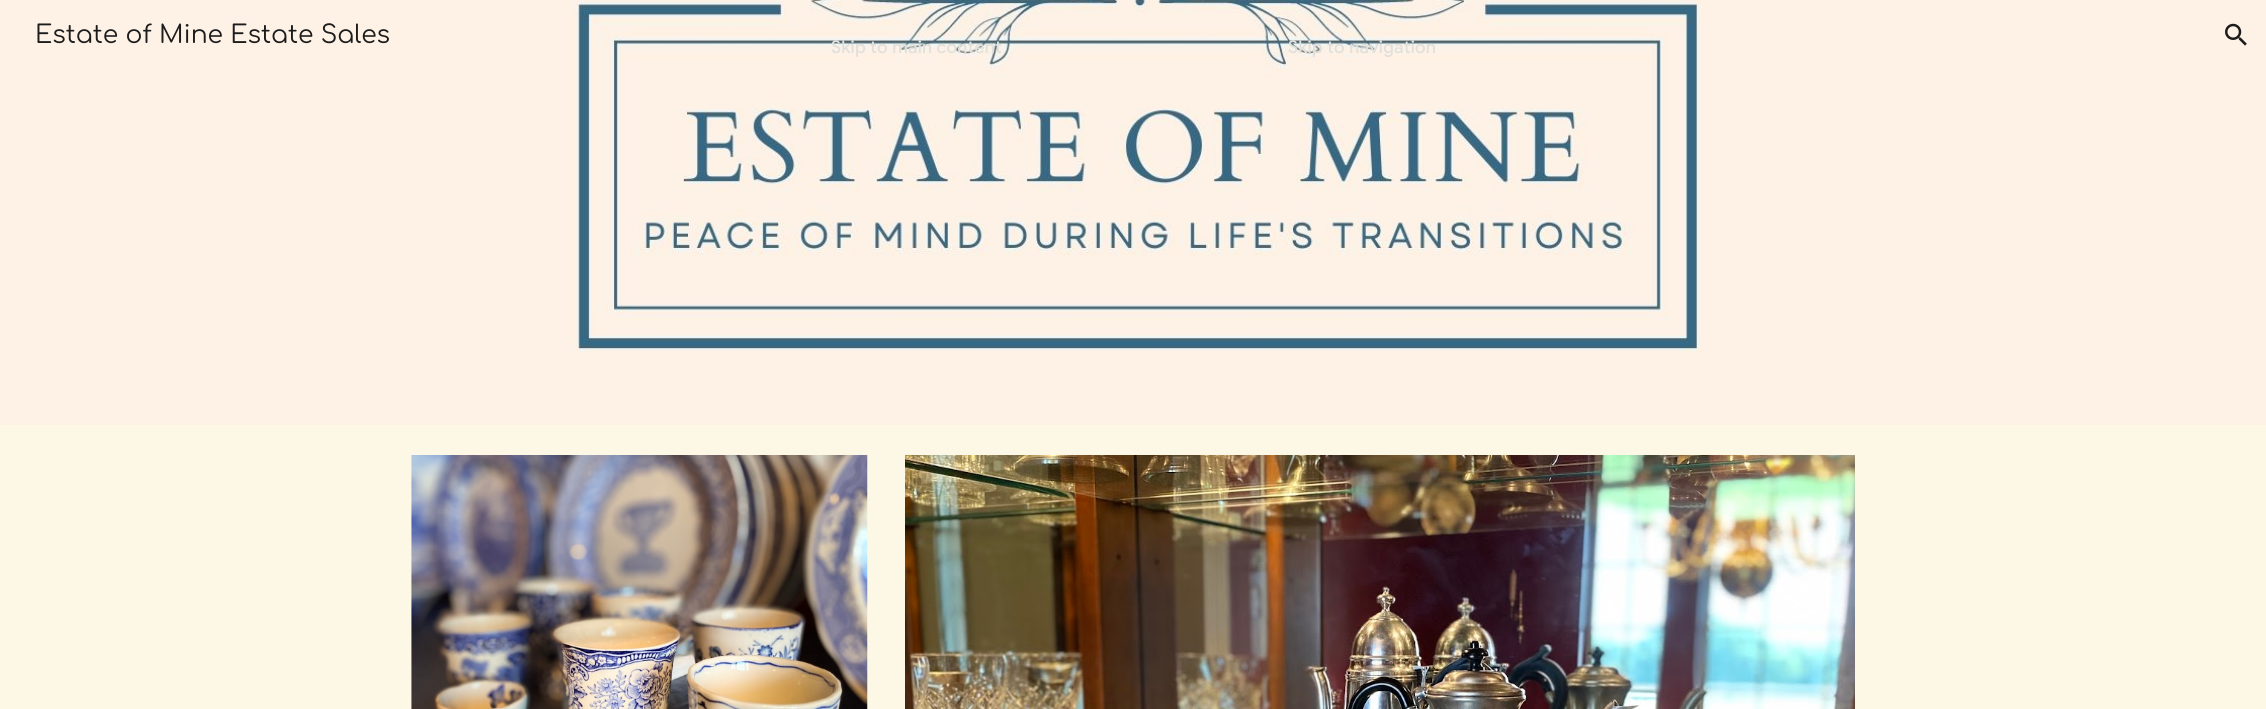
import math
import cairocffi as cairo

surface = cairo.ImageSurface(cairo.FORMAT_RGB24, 2266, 709)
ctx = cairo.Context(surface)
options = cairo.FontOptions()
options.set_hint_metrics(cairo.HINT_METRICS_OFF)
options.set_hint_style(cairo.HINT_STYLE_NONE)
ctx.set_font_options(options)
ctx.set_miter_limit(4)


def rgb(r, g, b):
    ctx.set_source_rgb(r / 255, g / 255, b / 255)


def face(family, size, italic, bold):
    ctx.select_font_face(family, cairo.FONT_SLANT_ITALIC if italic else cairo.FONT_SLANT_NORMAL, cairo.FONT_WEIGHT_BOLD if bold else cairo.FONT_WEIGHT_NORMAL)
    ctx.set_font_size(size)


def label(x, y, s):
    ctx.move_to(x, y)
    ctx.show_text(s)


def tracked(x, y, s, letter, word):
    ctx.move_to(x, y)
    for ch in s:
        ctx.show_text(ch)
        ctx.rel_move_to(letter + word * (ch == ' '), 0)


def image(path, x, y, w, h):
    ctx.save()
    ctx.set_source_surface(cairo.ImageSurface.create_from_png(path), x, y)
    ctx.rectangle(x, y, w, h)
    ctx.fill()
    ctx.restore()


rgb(253, 247, 229)
ctx.paint()
image('image0.png', 0, 0, 2266, 425)
image('image1.png', 411, 455, 457, 254)
image('image2.png', 905, 455, 950, 254)
face('Comfortaa', 25, 0, 0)
rgb(28, 28, 28)
label(35, 43, 'Estate of Mine Estate Sales')
image('image3.png', 2225, 23, 22, 23)
face('Google Sans Medium', 17.5, 0, 0)
rgb(226, 224, 219)
tracked(831, 53, 'Skip to main content', 0.2, 0)
tracked(1288, 53, 'Skip to navigation', 0.2, 0)
surface.write_to_png('render.png')
